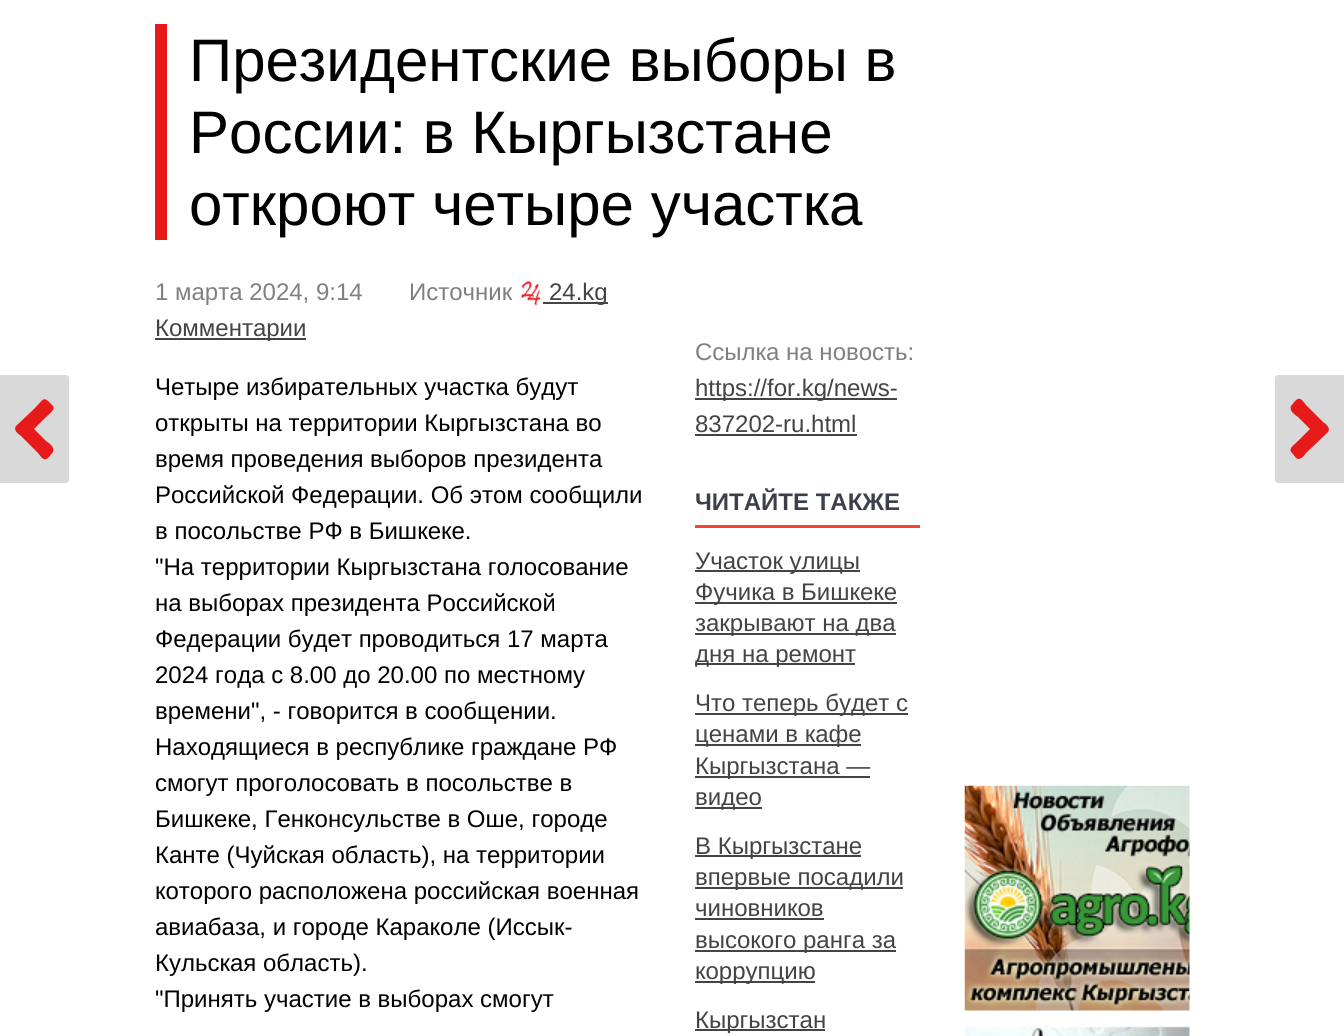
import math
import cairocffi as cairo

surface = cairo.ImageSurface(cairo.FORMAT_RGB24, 1344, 1036)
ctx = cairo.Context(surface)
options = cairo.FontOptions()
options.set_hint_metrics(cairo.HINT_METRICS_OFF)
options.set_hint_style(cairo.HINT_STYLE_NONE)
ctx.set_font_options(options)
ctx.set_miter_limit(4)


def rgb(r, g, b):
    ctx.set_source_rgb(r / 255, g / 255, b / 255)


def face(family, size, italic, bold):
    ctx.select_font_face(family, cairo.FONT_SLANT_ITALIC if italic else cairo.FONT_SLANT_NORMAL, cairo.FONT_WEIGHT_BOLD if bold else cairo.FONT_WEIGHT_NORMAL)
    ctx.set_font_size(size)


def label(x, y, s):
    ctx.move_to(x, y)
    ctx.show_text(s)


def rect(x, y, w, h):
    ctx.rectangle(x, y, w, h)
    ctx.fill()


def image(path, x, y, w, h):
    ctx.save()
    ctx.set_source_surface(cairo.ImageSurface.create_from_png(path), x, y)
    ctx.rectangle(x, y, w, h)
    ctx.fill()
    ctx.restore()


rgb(255, 255, 255)
ctx.paint()
rgb(231, 26, 26)
rect(155, 24, 12, 216)
face('Liberation Sans', 60, 0, 0)
rgb(0, 0, 0)
label(189, 81, 'Президентские выборы в')
label(189, 153, 'России: в Кыргызстане')
label(189, 225, 'откроют четыре участка')
rgb(217, 217, 217)
ctx.new_path()
ctx.move_to(0, 375)
ctx.line_to(66, 375)
ctx.curve_to(67.5, 375, 69, 376.5, 69, 378)
ctx.line_to(69, 480)
ctx.curve_to(69, 481.5, 67.5, 483, 66, 483)
ctx.line_to(0, 483)
ctx.close_path()
ctx.fill()
rgb(231, 26, 26)
ctx.new_path()
ctx.move_to(16, 426)
ctx.line_to(34, 409)
ctx.curve_to(44, 399, 43, 395, 52, 405)
ctx.curve_to(57, 409, 49, 414, 46, 417)
ctx.line_to(34, 429)
ctx.line_to(46, 441)
ctx.curve_to(49, 443, 55, 447, 53, 452)
ctx.line_to(49, 457)
ctx.curve_to(44, 462, 42, 458, 38, 453)
ctx.line_to(21, 436)
ctx.curve_to(18, 434, 13, 430, 16, 426)
ctx.close_path()
ctx.fill()
face('Liberation Sans', 24, 0, 0)
rgb(128, 128, 128)
label(155, 300, '1 марта 2024, 9:14')
label(409, 300, 'Источник')
image('image0.png', 521, 281, 20, 25)
rgb(68, 68, 68)
rect(543, 302, 65, 2)
label(549, 300, '24.kg')
rect(155, 338, 151, 2)
label(155, 336, 'Комментарии')
rgb(0, 0, 0)
label(155, 395, 'Четыре избирательных участка будут')
label(155, 431, 'открыты на территории Кыргызстана во')
label(155, 467, 'время проведения выборов президента')
label(155, 503, 'Российской Федерации. Об этом сообщили')
label(155, 539, 'в посольстве РФ в Бишкеке.')
label(155, 575, '"На территории Кыргызстана голосование')
label(155, 611, 'на выборах президента Российской')
label(155, 647, 'Федерации будет проводиться 17 марта')
label(155, 683, '2024 года с 8.00 до 20.00 по местному')
label(155, 719, 'времени", - говорится в сообщении.')
label(155, 755, 'Находящиеся в республике граждане РФ')
label(155, 791, 'смогут проголосовать в посольстве в')
label(155, 827, 'Бишкеке, Генконсульстве в Оше, городе')
label(155, 863, 'Канте (Чуйская область), на территории')
label(155, 899, 'которого расположена российская военная')
label(155, 935, 'авиабаза, и городе Караколе (Иссык-')
label(155, 971, 'Кульская область).')
label(155, 1007, '"Принять участие в выборах смогут')
rgb(128, 128, 128)
label(695, 360, 'Ссылка на новость:')
rgb(68, 68, 68)
rect(695, 398, 202, 2)
label(695, 396, 'https://for.kg/news-')
label(695, 432, '837202-ru.html')
rect(695, 434, 162, 2)
rgb(244, 67, 54)
rect(695, 525, 225, 3)
face('Liberation Sans', 24, 0, 1)
rgb(59, 65, 74)
label(695, 510, 'ЧИТАЙТЕ ТАКЖЕ')
rgb(68, 68, 68)
rect(695, 570, 165, 2)
face('Liberation Sans', 24, 0, 0)
label(695, 569, 'Участок улицы')
rect(695, 602, 202, 2)
label(695, 600, 'Фучика в Бишкеке')
rect(695, 633, 201, 2)
label(695, 631, 'закрывают на два')
rect(695, 663, 160, 2)
label(695, 662, 'дня на ремонт')
rect(695, 713, 213, 2)
label(695, 711, 'Что теперь будет с')
rect(695, 744, 166, 2)
label(695, 742, 'ценами в кафе')
rect(695, 776, 175, 2)
label(695, 774, 'Кыргызстана —')
rect(695, 807, 67, 2)
label(695, 805, 'видео')
rect(695, 855, 166, 2)
label(695, 854, 'В Кыргызстане')
rect(695, 887, 208, 2)
label(695, 885, 'впервые посадили')
label(695, 916, 'чиновников')
rect(695, 918, 129, 2)
rect(695, 950, 201, 2)
label(695, 948, 'высокого ранга за')
rect(695, 981, 120, 2)
label(695, 979, 'коррупцию')
rect(695, 1029, 130, 2)
label(695, 1028, 'Кыргызстан')
rgb(217, 217, 217)
ctx.new_path()
ctx.move_to(1278, 375)
ctx.line_to(1344, 375)
ctx.line_to(1344, 483)
ctx.line_to(1278, 483)
ctx.curve_to(1276.5, 483, 1275, 481.5, 1275, 480)
ctx.line_to(1275, 378)
ctx.curve_to(1275, 376.5, 1276.5, 375, 1278, 375)
ctx.close_path()
ctx.fill()
rgb(231, 26, 26)
ctx.new_path()
ctx.move_to(1328, 432)
ctx.line_to(1306, 453)
ctx.curve_to(1304, 456, 1300, 461, 1296, 458)
ctx.line_to(1293, 454)
ctx.curve_to(1287, 449, 1293, 446, 1298, 441)
ctx.line_to(1310, 429)
ctx.line_to(1298, 417)
ctx.curve_to(1295, 415, 1289, 411, 1291, 406)
ctx.line_to(1295, 401)
ctx.curve_to(1300, 396, 1302, 400, 1306, 405)
ctx.line_to(1323, 422)
ctx.curve_to(1326, 424, 1331, 428, 1328, 432)
ctx.close_path()
ctx.fill()
image('image1.png', 964, 785, 226, 226)
image('image2.png', 964, 1025, 226, 11)
surface.write_to_png('render.png')
